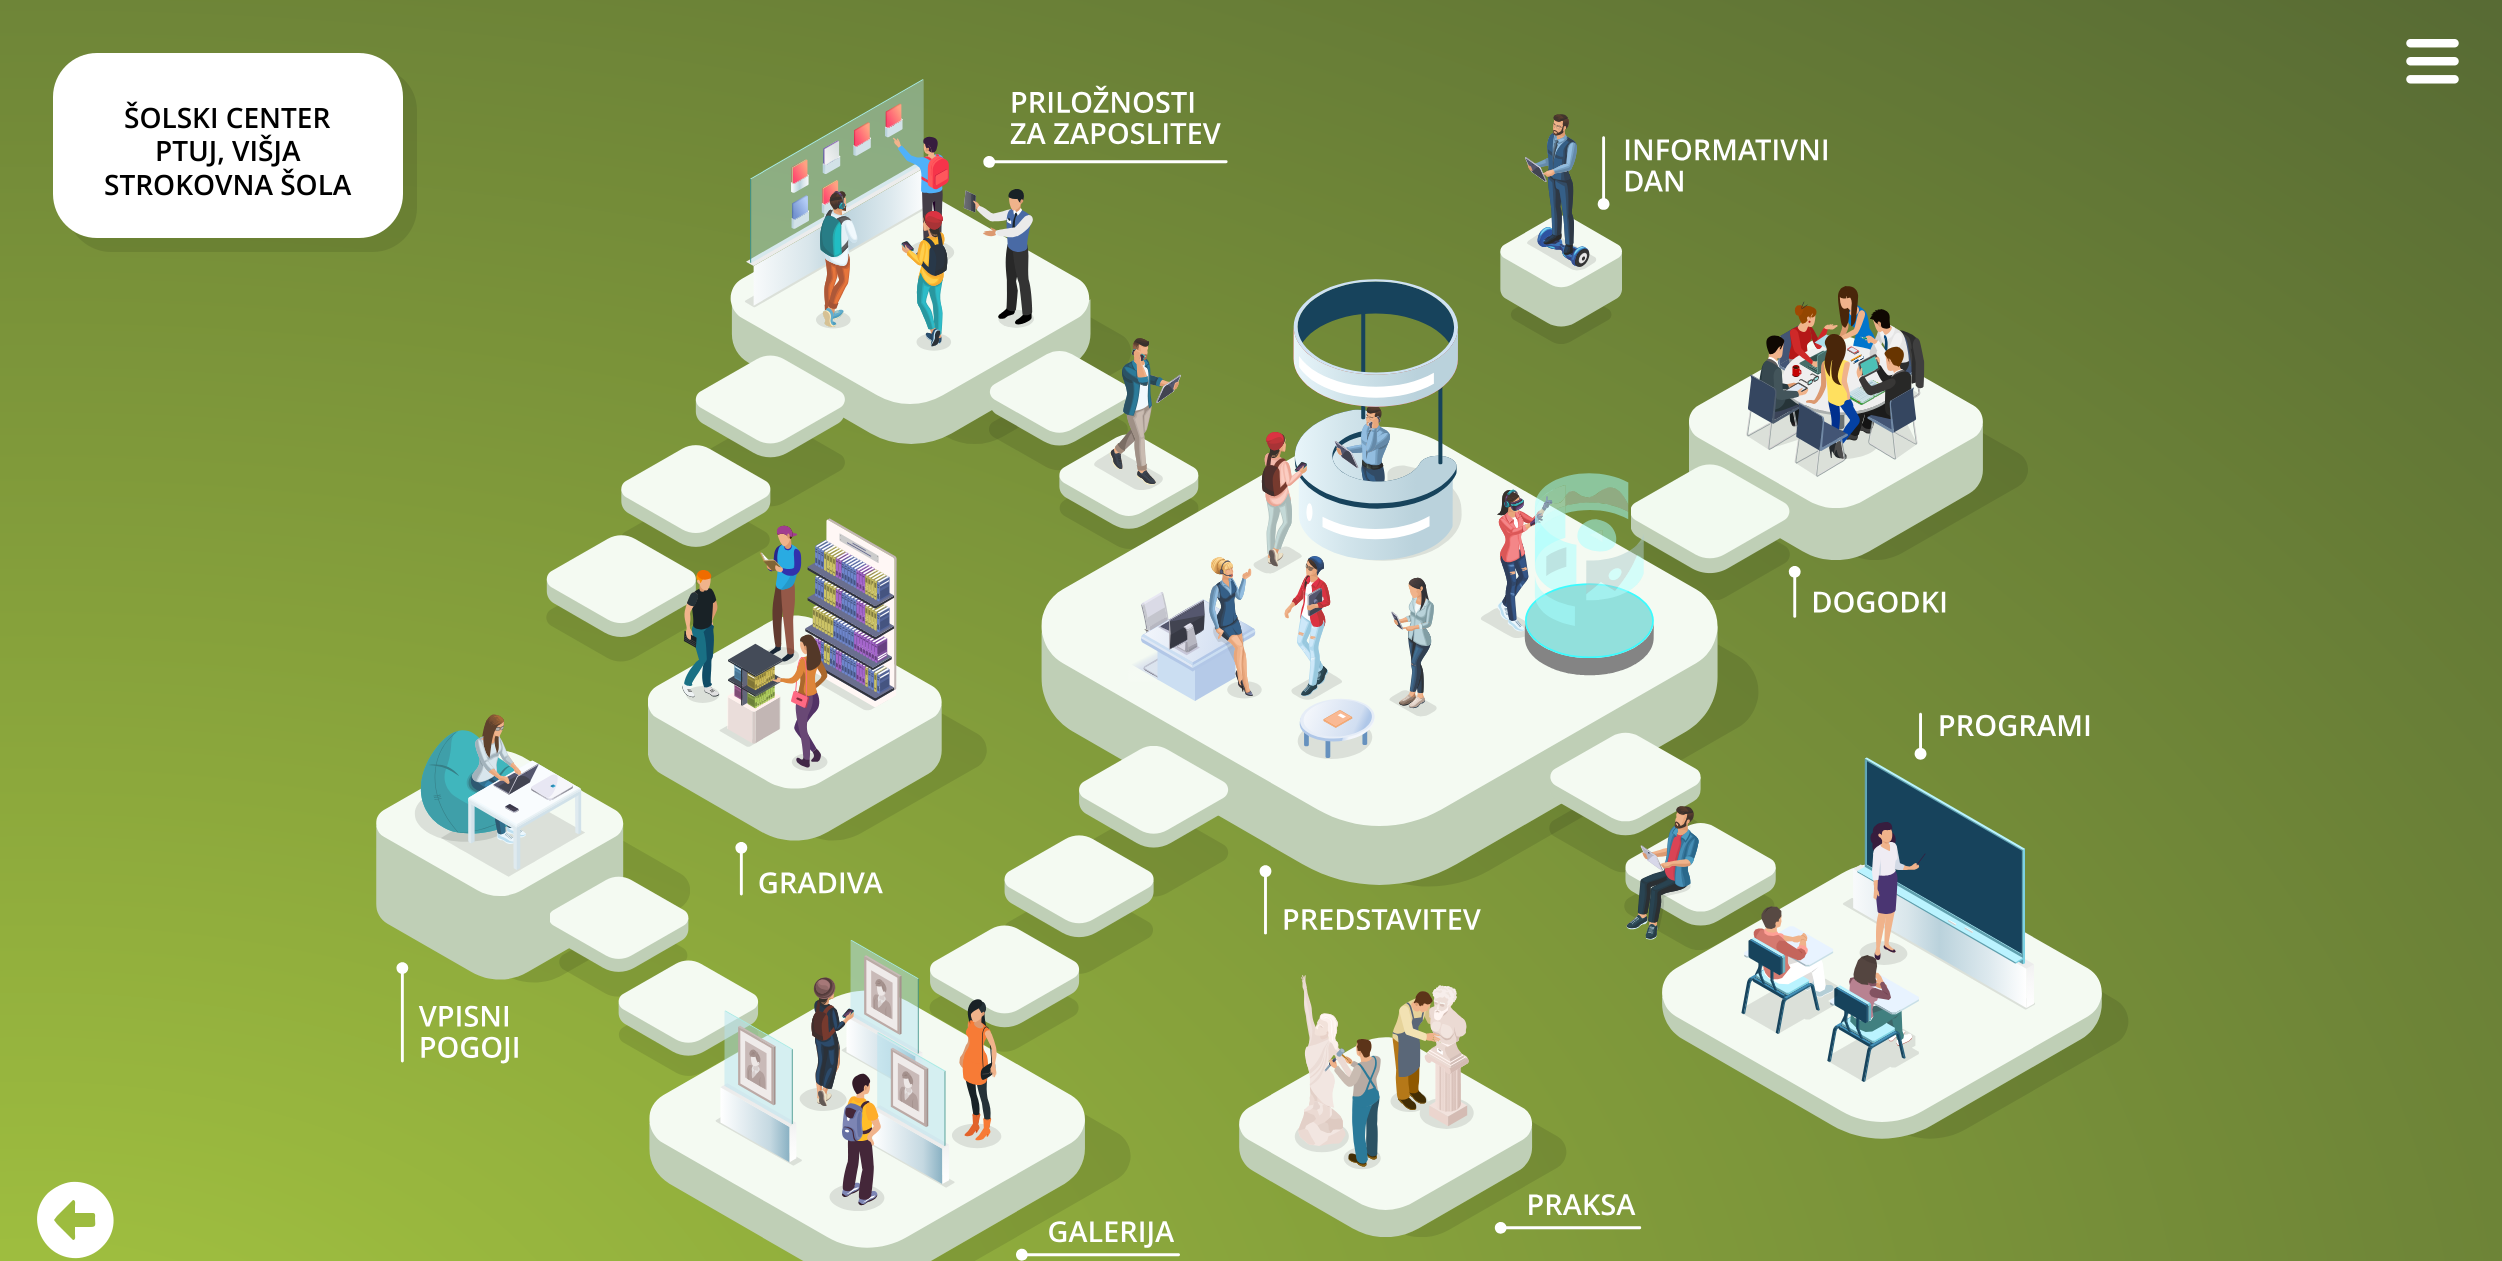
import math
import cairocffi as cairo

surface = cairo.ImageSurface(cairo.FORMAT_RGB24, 2502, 1261)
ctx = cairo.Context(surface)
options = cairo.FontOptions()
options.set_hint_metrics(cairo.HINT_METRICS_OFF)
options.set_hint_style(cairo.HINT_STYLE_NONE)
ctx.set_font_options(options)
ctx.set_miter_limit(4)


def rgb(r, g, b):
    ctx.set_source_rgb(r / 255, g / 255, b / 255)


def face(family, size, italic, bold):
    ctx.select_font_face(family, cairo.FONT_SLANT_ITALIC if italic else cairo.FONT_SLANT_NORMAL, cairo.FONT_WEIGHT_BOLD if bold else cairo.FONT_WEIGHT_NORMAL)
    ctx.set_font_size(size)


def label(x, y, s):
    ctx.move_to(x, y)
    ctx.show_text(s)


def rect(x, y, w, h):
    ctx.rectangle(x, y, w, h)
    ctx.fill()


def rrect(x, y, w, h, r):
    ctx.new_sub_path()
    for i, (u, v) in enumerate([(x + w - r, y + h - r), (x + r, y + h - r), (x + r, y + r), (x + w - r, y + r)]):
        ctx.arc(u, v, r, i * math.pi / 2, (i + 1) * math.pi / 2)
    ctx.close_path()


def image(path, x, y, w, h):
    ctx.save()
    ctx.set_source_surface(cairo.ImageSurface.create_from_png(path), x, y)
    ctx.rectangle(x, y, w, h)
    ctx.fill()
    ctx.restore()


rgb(255, 255, 255)
ctx.paint()
gradient = cairo.RadialGradient(0, 0, 0, 0, 0, 1)
gradient.set_matrix(cairo.Matrix(1 / 3539, 0, 0, 1 / 1995, -1 * 0 / 3539, -1 * 1411 / 1995))
gradient.add_color_stop_rgba(0, 0.643, 0.769, 0.251, 1)
gradient.add_color_stop_rgba(1, 0.345, 0.42, 0.204, 1)
ctx.set_source(gradient)
rect(0, 0, 2502, 1261)
image('image0.png', 2406, 39, 53, 45)
ctx.set_source_rgba(0, 0, 0, 0.1)
ctx.new_path()
ctx.move_to(74, 232)
ctx.curve_to(82, 244, 96, 252, 111, 252)
ctx.line_to(373, 252)
ctx.curve_to(397, 252, 417, 232, 417, 208)
ctx.line_to(417, 111)
ctx.curve_to(417, 95, 409, 81, 396, 74)
ctx.curve_to(400, 80, 402, 88, 402, 96)
ctx.line_to(402, 194)
ctx.curve_to(402, 218, 383, 238, 359, 238)
ctx.line_to(96, 238)
ctx.curve_to(88, 238, 81, 236, 74, 232)
ctx.close_path()
ctx.fill()
rgb(255, 255, 255)
rrect(53, 53, 350, 185, 44)
ctx.fill()
face('Open Sans SemiBold', 28, 0, 0)
rgb(0, 0, 0)
label(124, 128, 'ŠOLSKI CENTER')
label(155, 161, 'PTUJ, VIŠJA')
label(104, 195, 'STROKOVNA ŠOLA')
image('image1.png', 730, 79, 498, 365)
image('image4.png', 1689, 286, 339, 332)
image('image6.png', 989, 338, 210, 211)
image('image7.png', 1631, 464, 159, 136)
image('image3.png', 1041, 279, 718, 656)
image('image2.png', 1500, 114, 327, 230)
image('image5.png', 546, 355, 299, 307)
image('image8.png', 376, 714, 314, 350)
image('image11.png', 550, 876, 209, 200)
image('image9.png', 648, 518, 339, 378)
image('image13.png', 1549, 732, 227, 218)
image('image10.png', 1662, 712, 467, 427)
image('image12.png', 929, 746, 300, 306)
image('image14.png', 649, 940, 531, 321)
image('image15.png', 1239, 975, 403, 262)
rgb(255, 255, 255)
ctx.new_path()
ctx.move_to(102, 1247)
ctx.curve_to(96, 1253, 88, 1257, 79, 1258)
ctx.curve_to(44, 1261, 23, 1218, 48, 1193)
ctx.curve_to(55, 1187, 63, 1183, 71, 1182)
ctx.curve_to(107, 1179, 128, 1222, 102, 1247)
ctx.close_path()
ctx.move_to(93, 1213)
ctx.line_to(75, 1213)
ctx.line_to(75, 1206)
ctx.curve_to(75, 1204, 76, 1200, 73, 1200)
ctx.line_to(57, 1216)
ctx.line_to(54, 1220)
ctx.line_to(57, 1224)
ctx.line_to(73, 1240)
ctx.curve_to(76, 1240, 75, 1236, 75, 1234)
ctx.line_to(75, 1227)
ctx.line_to(90, 1227)
ctx.curve_to(97, 1227, 95, 1225, 95, 1218)
ctx.curve_to(95, 1217, 96, 1213, 93, 1213)
ctx.close_path()
ctx.fill()
surface.write_to_png('render.png')
